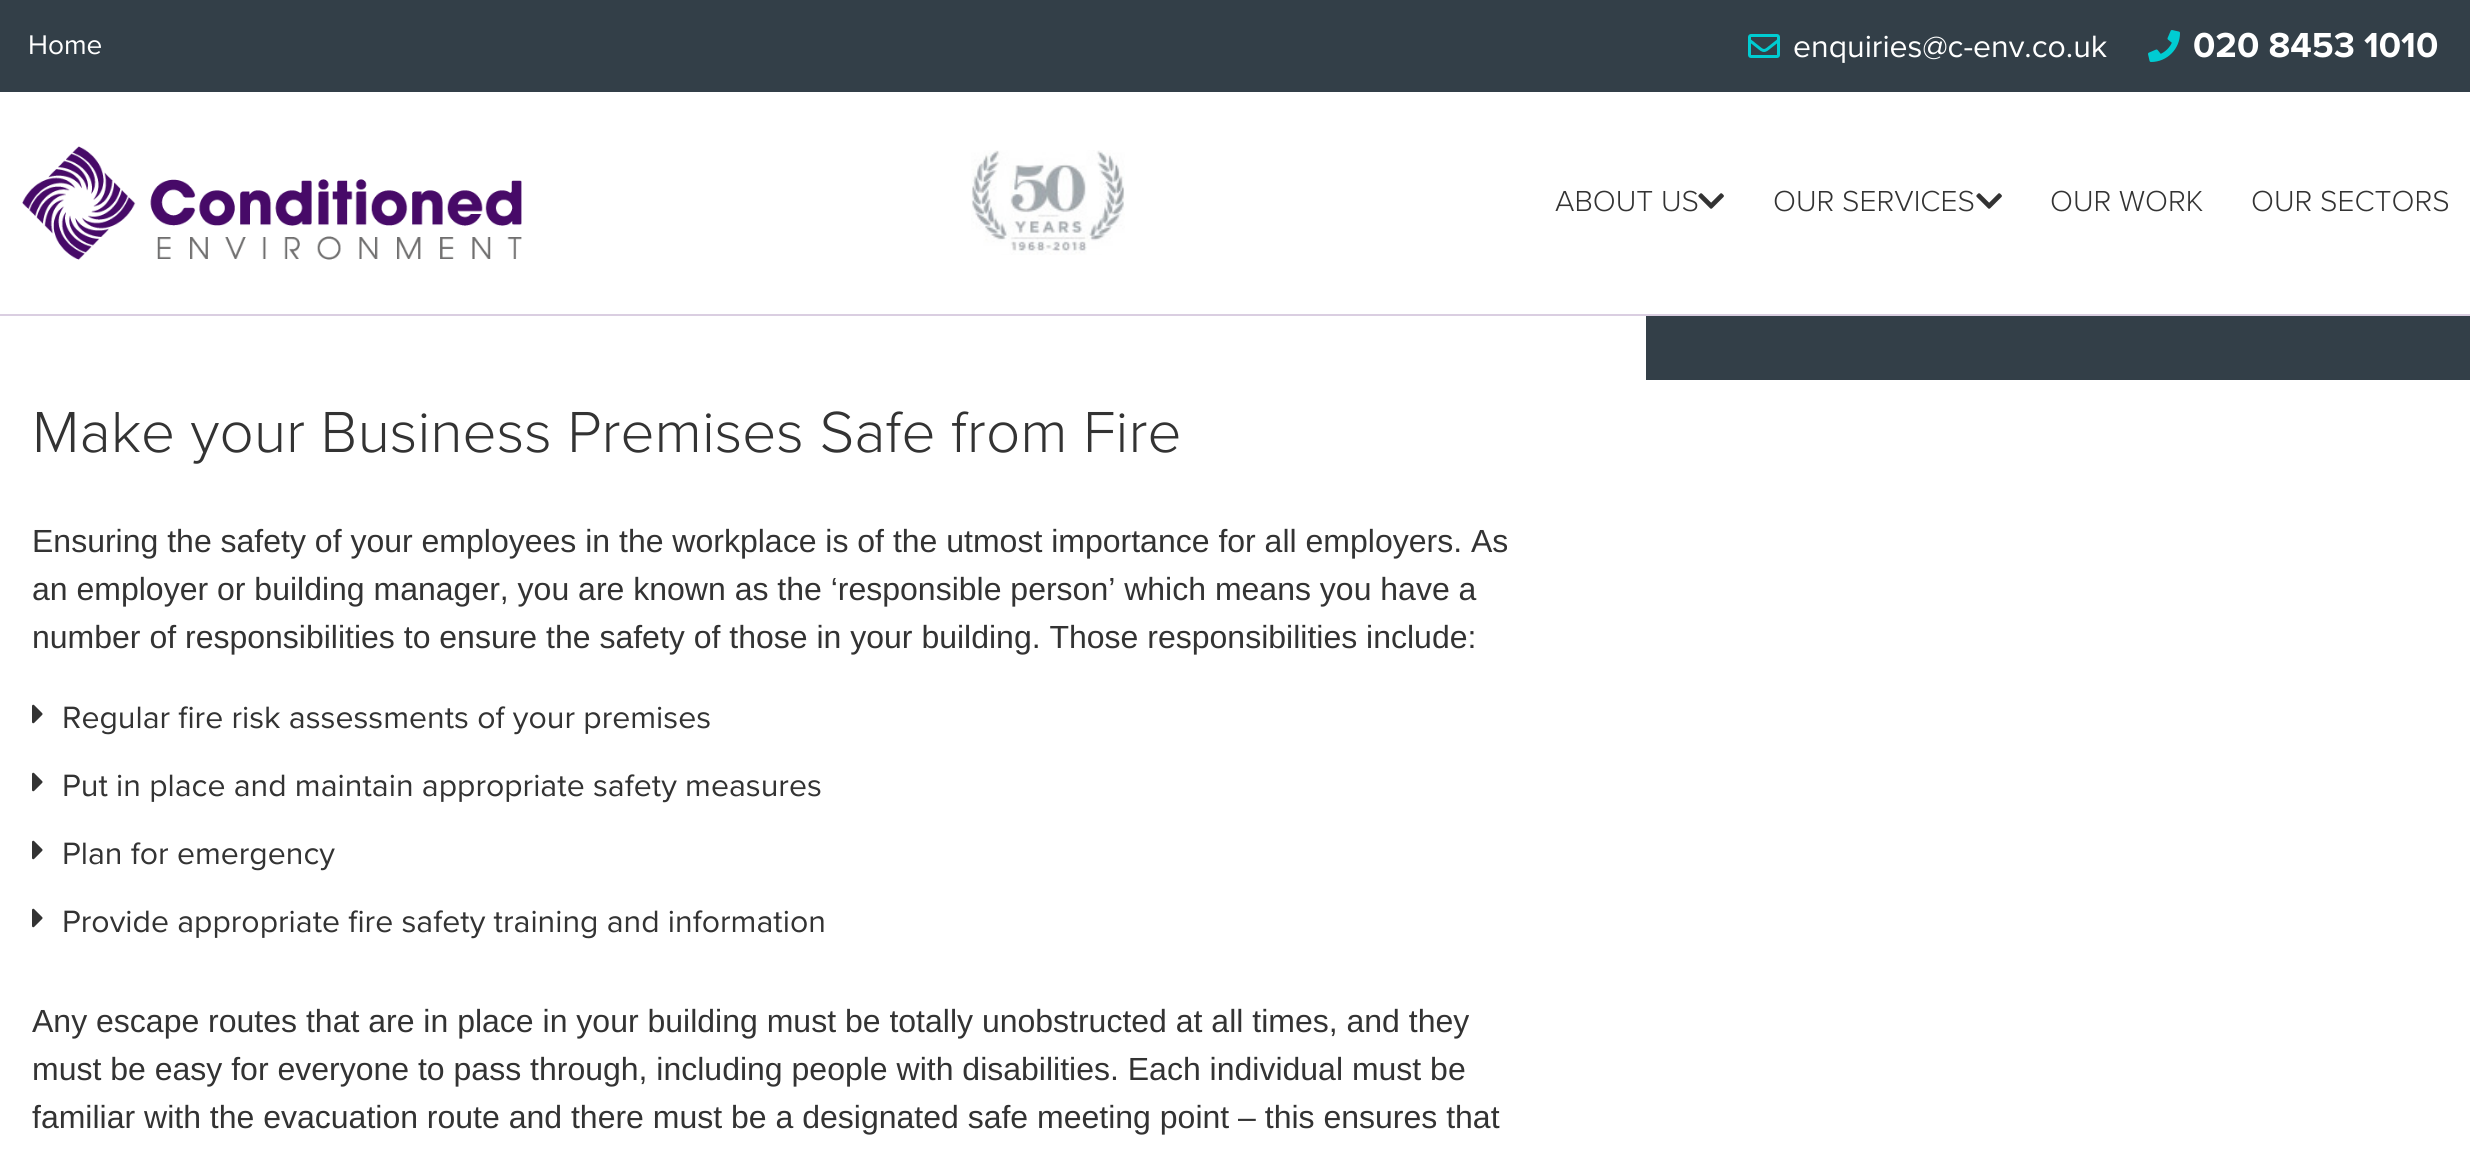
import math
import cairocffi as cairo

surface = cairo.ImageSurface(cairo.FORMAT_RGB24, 2470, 1158)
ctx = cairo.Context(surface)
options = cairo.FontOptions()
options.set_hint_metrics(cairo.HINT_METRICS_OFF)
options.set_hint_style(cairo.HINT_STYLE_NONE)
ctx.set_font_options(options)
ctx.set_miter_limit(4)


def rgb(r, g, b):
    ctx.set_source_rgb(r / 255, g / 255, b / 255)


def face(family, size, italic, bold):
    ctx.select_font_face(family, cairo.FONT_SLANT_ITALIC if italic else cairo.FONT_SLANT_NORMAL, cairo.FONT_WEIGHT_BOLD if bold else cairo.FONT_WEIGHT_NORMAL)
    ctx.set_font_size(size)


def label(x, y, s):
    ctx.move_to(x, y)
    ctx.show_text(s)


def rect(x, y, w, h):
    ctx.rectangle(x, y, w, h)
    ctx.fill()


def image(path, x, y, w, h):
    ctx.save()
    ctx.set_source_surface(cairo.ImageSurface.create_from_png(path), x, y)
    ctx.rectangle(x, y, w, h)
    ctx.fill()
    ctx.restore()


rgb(255, 255, 255)
ctx.paint()
rgb(218, 206, 225)
rect(0, 314, 2470, 2)
rgb(51, 63, 72)
rect(0, 0, 2470, 92)
face('Proxima Nova', 28, 0, 0)
rgb(255, 255, 255)
label(28, 54, 'Home')
image('image0.png', 1748, 34, 32, 24)
face('Proxima Nova', 32, 0, 0)
label(1793, 57, 'enquiries@c-env.co.uk')
image('image1.png', 2148, 30, 32, 32)
face('Proxima Nova', 36, 0, 1)
label(2193, 57, '020 8453 1010')
image('image2.png', 22, 146, 500, 114)
image('image3.png', 971, 150, 154, 105)
face('Proxima Nova Light', 30, 0, 0)
rgb(51, 51, 51)
label(1555, 211, 'ABOUT US')
image('image4.png', 1698, 193, 26, 16)
label(1773, 211, 'OUR SERVICES')
image('image4.png', 1976, 193, 26, 16)
label(2050, 211, 'OUR WORK')
label(2251, 211, 'OUR SECTORS')
rgb(51, 63, 72)
rect(1646, 316, 824, 64)
face('Proxima Nova Light', 60, 0, 0)
rgb(51, 51, 51)
label(32, 452, 'Make your Business Premises Safe from Fire')
face('Liberation Sans', 32, 0, 0)
label(32, 552, 'Ensuring the safety of your employees in the workplace is of the utmost importance for all employers. As')
label(32, 600, 'an employer or building manager, you are known as the ‘responsible person’ which means you have a')
label(32, 648, 'number of responsibilities to ensure the safety of those in your building. Those responsibilities include:')
image('image5.png', 32, 704, 11, 20)
face('Proxima Nova', 32, 0, 0)
label(62, 728, 'Regular fire risk assessments of your premises')
image('image5.png', 32, 772, 11, 20)
label(62, 796, 'Put in place and maintain appropriate safety measures')
image('image5.png', 32, 840, 11, 20)
label(62, 864, 'Plan for emergency')
image('image5.png', 32, 908, 11, 20)
label(62, 932, 'Provide appropriate fire safety training and information')
face('Liberation Sans', 32, 0, 0)
label(32, 1032, 'Any escape routes that are in place in your building must be totally unobstructed at all times, and they')
label(32, 1080, 'must be easy for everyone to pass through, including people with disabilities. Each individual must be')
label(32, 1128, 'familiar with the evacuation route and there must be a designated safe meeting point – this ensures that')
surface.write_to_png('render.png')
